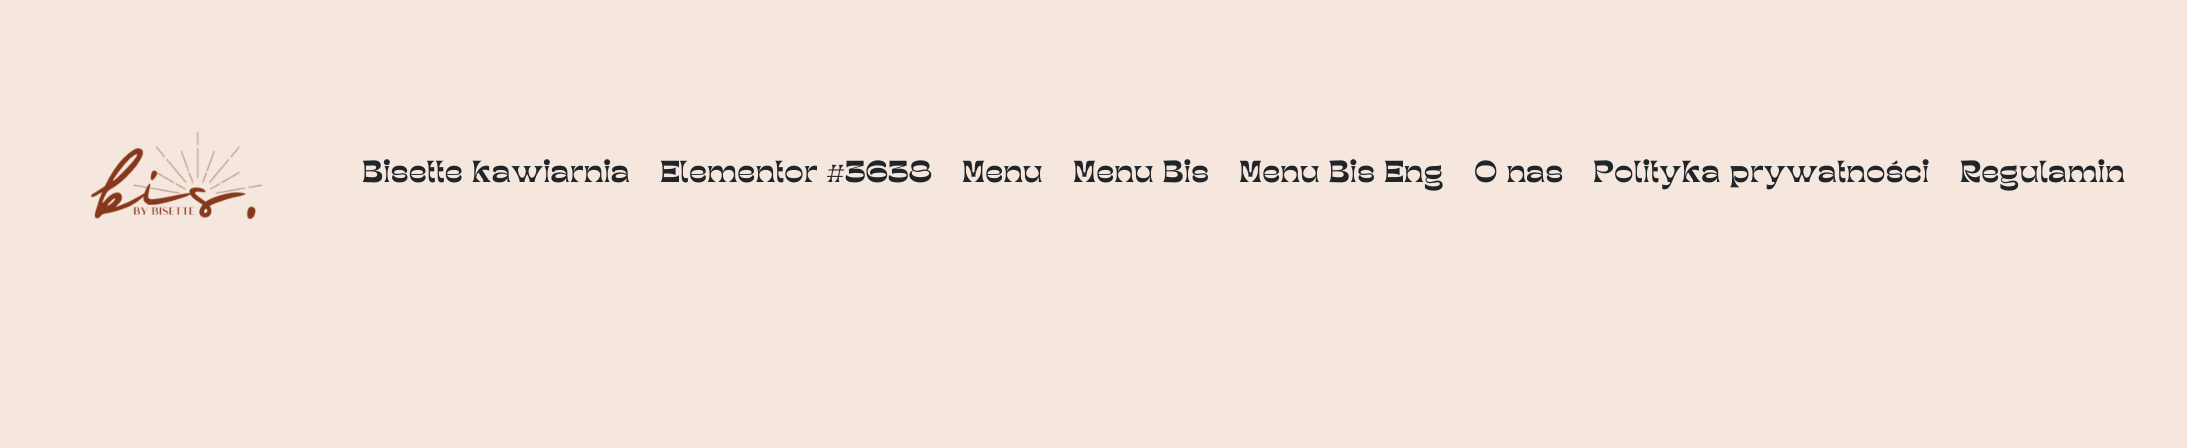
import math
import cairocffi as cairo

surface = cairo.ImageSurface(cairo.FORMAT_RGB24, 2187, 448)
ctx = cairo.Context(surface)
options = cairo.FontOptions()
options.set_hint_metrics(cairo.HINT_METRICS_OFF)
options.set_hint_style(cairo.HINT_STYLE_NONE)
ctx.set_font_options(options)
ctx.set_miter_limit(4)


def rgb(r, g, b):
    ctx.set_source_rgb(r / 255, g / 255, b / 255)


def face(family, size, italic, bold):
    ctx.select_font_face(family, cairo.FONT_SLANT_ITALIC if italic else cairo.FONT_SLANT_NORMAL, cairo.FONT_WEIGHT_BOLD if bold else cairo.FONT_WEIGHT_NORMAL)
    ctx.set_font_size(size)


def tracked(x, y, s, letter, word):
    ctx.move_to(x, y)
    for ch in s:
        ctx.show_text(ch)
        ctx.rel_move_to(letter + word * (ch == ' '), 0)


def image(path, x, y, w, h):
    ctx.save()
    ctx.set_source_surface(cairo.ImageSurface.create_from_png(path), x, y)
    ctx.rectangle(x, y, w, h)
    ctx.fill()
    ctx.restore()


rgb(245, 231, 222)
ctx.paint()
image('image0.png', 90, 131, 173, 89)
face('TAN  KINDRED', 21.25, 0, 0)
rgb(31, 37, 41)
tracked(362, 182, 'Bisette kawiarnia', 0.25, 0)
tracked(660, 182, 'Elementor #3638', 0.25, 0)
tracked(962, 182, 'Menu', 0.25, 0)
tracked(1073, 182, 'Menu Bis', 0.25, 0)
tracked(1239, 182, 'Menu Bis Eng', 0.25, 0)
tracked(1474, 182, 'O nas', 0.25, 0)
tracked(1593, 182, 'Polityka prywatności', 0.25, 0)
tracked(1960, 182, 'Regulamin', 0.25, 0)
surface.write_to_png('render.png')
